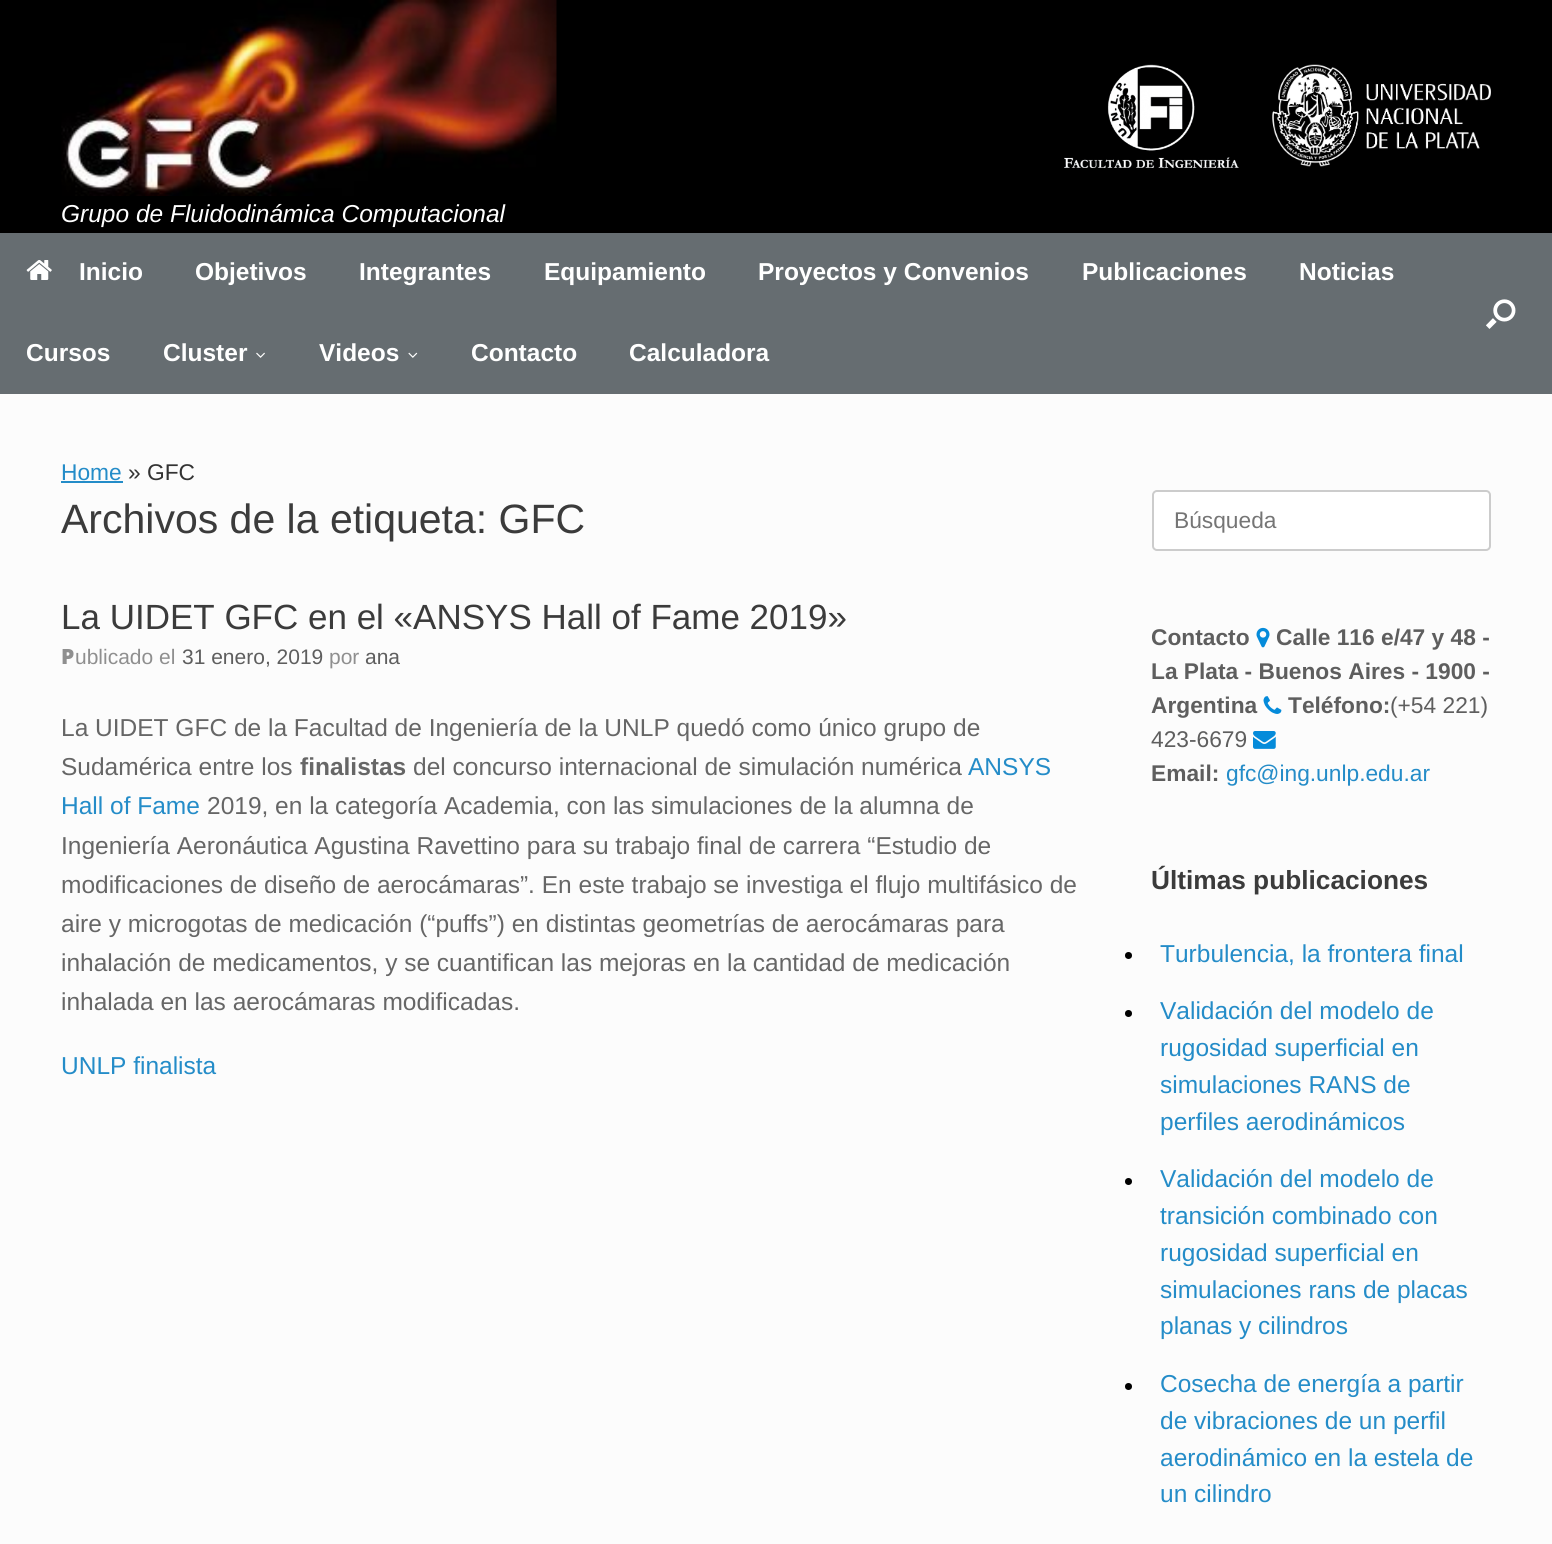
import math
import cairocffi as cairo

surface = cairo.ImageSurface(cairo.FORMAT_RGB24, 1552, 1544)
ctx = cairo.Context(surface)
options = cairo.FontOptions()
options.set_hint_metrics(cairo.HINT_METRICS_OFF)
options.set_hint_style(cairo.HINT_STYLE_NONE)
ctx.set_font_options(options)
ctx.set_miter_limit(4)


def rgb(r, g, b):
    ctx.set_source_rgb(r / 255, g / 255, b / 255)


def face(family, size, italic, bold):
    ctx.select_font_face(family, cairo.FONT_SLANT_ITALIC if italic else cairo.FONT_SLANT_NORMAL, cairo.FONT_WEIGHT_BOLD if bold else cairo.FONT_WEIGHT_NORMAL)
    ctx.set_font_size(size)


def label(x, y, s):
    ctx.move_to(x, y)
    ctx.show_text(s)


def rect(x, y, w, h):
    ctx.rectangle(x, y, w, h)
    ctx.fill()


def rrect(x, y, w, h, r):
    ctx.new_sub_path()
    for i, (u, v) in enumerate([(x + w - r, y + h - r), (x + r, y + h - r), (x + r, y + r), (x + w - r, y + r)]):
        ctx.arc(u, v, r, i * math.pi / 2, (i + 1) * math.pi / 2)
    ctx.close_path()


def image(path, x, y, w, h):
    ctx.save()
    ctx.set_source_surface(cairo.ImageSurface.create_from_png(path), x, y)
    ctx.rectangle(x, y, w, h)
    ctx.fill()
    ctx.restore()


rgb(0, 0, 0)
ctx.paint()
image('image0.png', 1064, 64, 175, 104)
image('image1.png', 1272, 64, 219, 103)
image('image2.png', 61, 0, 496, 196)
face('Liberation Sans', 24.5, 1, 0)
rgb(255, 255, 255)
label(61, 222, 'Grupo de Fluidodinámica Computacional')
rgb(102, 109, 113)
rect(0, 233, 1552, 161)
image('image3.png', 26, 260, 26, 20)
face('Liberation Sans', 24.5, 0, 1)
rgb(255, 255, 255)
label(79, 280, 'Inicio')
label(195, 280, 'Objetivos')
label(359, 280, 'Integrantes')
label(544, 280, 'Equipamiento')
label(758, 280, 'Proyectos y Convenios')
label(1082, 280, 'Publicaciones')
label(1299, 280, 'Noticias')
label(26, 361, 'Cursos')
label(163, 361, 'Cluster')
image('image4.png', 256, 352, 9, 6)
label(319, 361, 'Videos')
image('image5.png', 408, 352, 10, 6)
label(471, 361, 'Contacto')
label(629, 361, 'Calculadora')
image('image6.png', 1486, 299, 30, 30)
rgb(252, 252, 252)
rect(0, 394, 1552, 1150)
face('Liberation Sans', 22.75, 0, 0)
rgb(36, 140, 200)
label(61, 480, 'Home')
rect(61, 481, 62, 2)
rgb(51, 51, 51)
label(128, 480, '» GFC')
face('Liberation Sans', 41, 0, 0)
rgb(59, 59, 59)
label(61, 533, 'Archivos de la etiqueta: GFC')
face('Liberation Sans', 35, 0, 0)
label(61, 629, 'La UIDET GFC en el «ANSYS Hall of Fame 2019»')
face('Noto Sans Black', 21, 0, 0)
rgb(143, 143, 143)
label(61, 664, 'P')
face('Liberation Sans', 21, 0, 0)
label(75, 664, 'ublicado el')
rgb(94, 94, 94)
label(182, 664, '31 enero, 2019')
rgb(143, 143, 143)
label(329, 664, 'por')
rgb(94, 94, 94)
label(365, 664, 'ana')
face('Liberation Sans', 24.5, 0, 0)
rgb(102, 102, 102)
label(61, 736, 'La UIDET GFC de la Facultad de Ingeniería de la UNLP quedó como único grupo de')
label(61, 775, 'Sudamérica entre los')
face('Liberation Sans', 24.5, 0, 1)
label(300, 775, 'finalistas')
face('Liberation Sans', 24.5, 0, 0)
label(413, 775, 'del concurso internacional de simulación numérica')
rgb(36, 140, 200)
label(968, 775, 'ANSYS')
label(61, 814, 'Hall of Fame')
rgb(102, 102, 102)
label(207, 814, '2019, en la categoría Academia, con las simulaciones de la alumna de')
label(61, 854, 'Ingeniería Aeronáutica Agustina Ravettino para su trabajo final de carrera “Estudio de')
label(61, 893, 'modificaciones de diseño de aerocámaras”. En este trabajo se investiga el flujo multifásico de')
label(61, 932, 'aire y microgotas de medicación (“puffs”) en distintas geometrías de aerocámaras para')
label(61, 971, 'inhalación de medicamentos, y se cuantifican las mejoras en la cantidad de medicación')
label(61, 1010, 'inhalada en las aerocámaras modificadas.')
rgb(36, 140, 200)
label(61, 1074, 'UNLP finalista')
rgb(255, 255, 255)
rrect(1153, 491, 337, 59, 4)
ctx.fill_preserve()
rgb(204, 204, 204)
ctx.stroke()
face('Liberation Sans', 22.75, 0, 0)
rgb(117, 117, 117)
label(1174, 528, 'Búsqueda')
image('image7.png', 1256, 627, 14, 21)
face('Liberation Sans', 22.75, 0, 1)
rgb(94, 94, 94)
label(1276, 645, 'Calle 116 e/47 y 48 -')
label(1151, 679, 'La Plata - Buenos Aires - 1900 -')
label(1151, 713, 'Argentina')
image('image8.png', 1263, 696, 19, 18)
label(1151, 645, 'Contacto')
label(1288, 713, 'Teléfono:')
face('Liberation Sans', 22.75, 0, 0)
label(1390, 713, '(+54 221)')
label(1151, 747, '423-6679')
image('image9.png', 1253, 731, 23, 18)
face('Liberation Sans', 22.75, 0, 1)
label(1151, 781, 'Email:')
face('Liberation Sans', 22.75, 0, 0)
rgb(36, 140, 200)
label(1226, 781, 'gfc@ing.unlp.edu.ar')
face('Liberation Sans', 26.25, 0, 1)
rgb(59, 59, 59)
label(1151, 889, 'Últimas publicaciones')
rgb(0, 0, 0)
ctx.new_path()
ctx.arc(1128.5, 955.5, 3.5, 0, 2 * math.pi)
ctx.fill()
face('Liberation Sans', 24.5, 0, 0)
rgb(36, 140, 200)
label(1160, 962, 'Turbulencia, la frontera final')
rgb(0, 0, 0)
ctx.new_path()
ctx.arc(1128.5, 1013.5, 3.5, 0, 2 * math.pi)
ctx.fill()
rgb(36, 140, 200)
label(1160, 1019, 'Validación del modelo de')
label(1160, 1056, 'rugosidad superficial en')
label(1160, 1093, 'simulaciones RANS de')
label(1160, 1130, 'perfiles aerodinámicos')
rgb(0, 0, 0)
ctx.new_path()
ctx.arc(1128.5, 1181.5, 3.5, 0, 2 * math.pi)
ctx.fill()
rgb(36, 140, 200)
label(1160, 1187, 'Validación del modelo de')
label(1160, 1224, 'transición combinado con')
label(1160, 1261, 'rugosidad superficial en')
label(1160, 1298, 'simulaciones rans de placas')
label(1160, 1334, 'planas y cilindros')
rgb(0, 0, 0)
ctx.new_path()
ctx.arc(1128.5, 1386.5, 3.5, 0, 2 * math.pi)
ctx.fill()
rgb(36, 140, 200)
label(1160, 1392, 'Cosecha de energía a partir')
label(1160, 1429, 'de vibraciones de un perfil')
label(1160, 1466, 'aerodinámico en la estela de')
label(1160, 1502, 'un cilindro')
surface.write_to_png('render.png')
